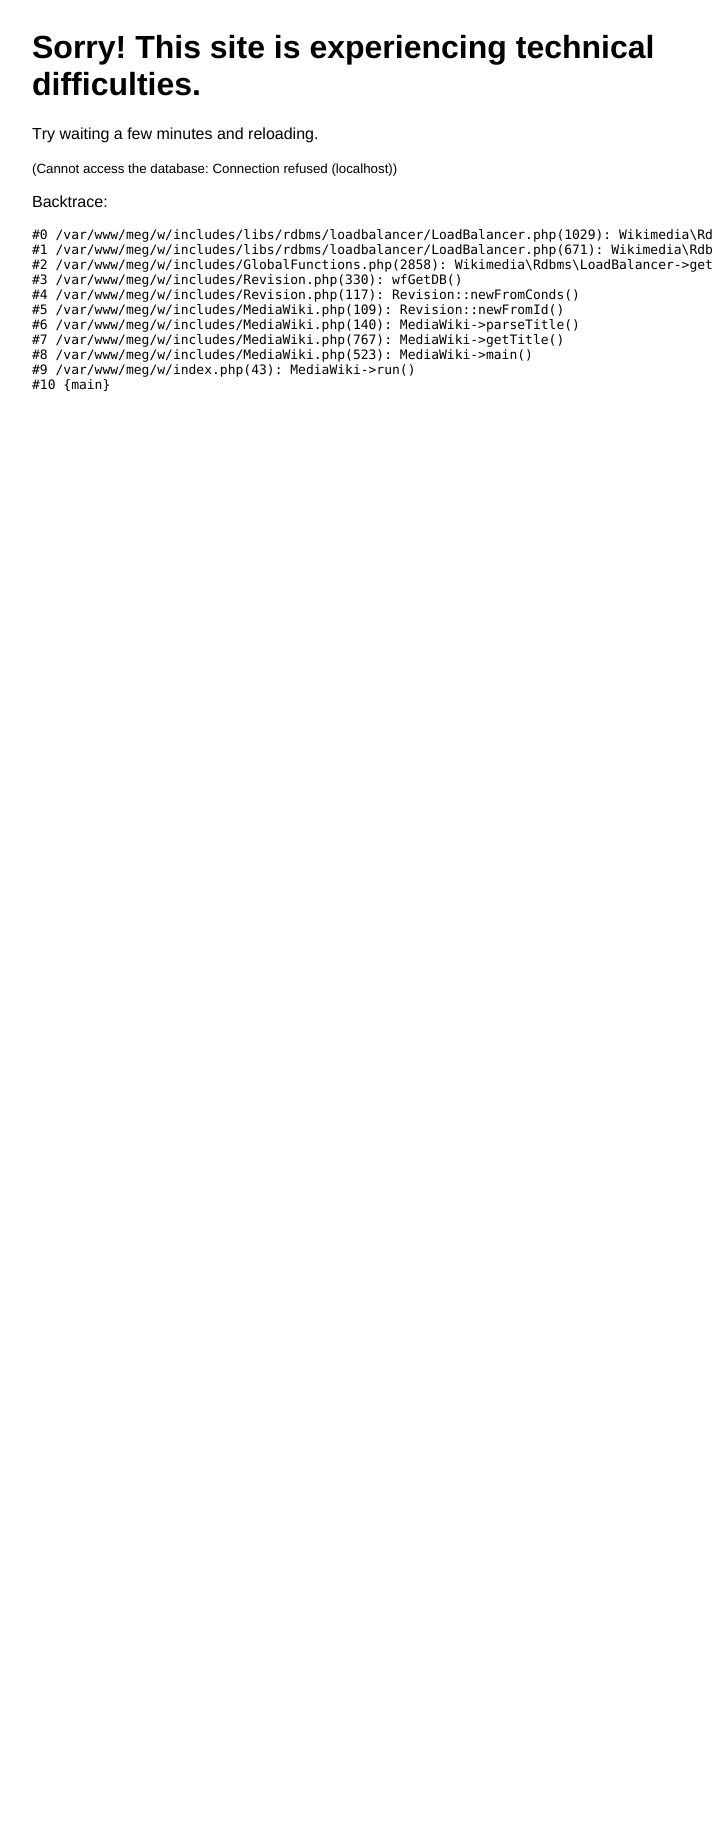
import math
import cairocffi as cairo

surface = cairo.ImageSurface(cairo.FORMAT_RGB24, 712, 1823)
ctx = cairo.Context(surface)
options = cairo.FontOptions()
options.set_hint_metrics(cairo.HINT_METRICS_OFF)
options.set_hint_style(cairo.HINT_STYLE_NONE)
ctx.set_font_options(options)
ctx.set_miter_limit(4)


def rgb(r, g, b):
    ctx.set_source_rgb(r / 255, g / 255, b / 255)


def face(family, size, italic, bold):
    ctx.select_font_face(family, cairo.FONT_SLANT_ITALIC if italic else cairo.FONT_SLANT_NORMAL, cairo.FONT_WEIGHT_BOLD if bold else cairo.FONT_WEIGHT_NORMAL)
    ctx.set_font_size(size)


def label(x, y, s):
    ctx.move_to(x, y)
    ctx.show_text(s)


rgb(255, 255, 255)
ctx.paint()
face('Liberation Sans', 32, 0, 1)
rgb(0, 0, 0)
label(32, 58, 'Sorry! This site is experiencing technical')
label(32, 95, 'difficulties.')
face('Liberation Sans', 16, 0, 0)
label(32, 139, 'Try waiting a few minutes and reloading.')
face('Liberation Sans', 13.3, 0, 0)
label(32, 173, '(Cannot access the database: Connection refused (localhost))')
face('Liberation Sans', 16, 0, 0)
label(32, 207, 'Backtrace:')
face('DejaVu Sans Mono', 13, 0, 0)
label(32, 239, '#0 /var/www/meg/w/includes/libs/rdbms/loadbalancer/LoadBalancer.php(1029): Wikimedia\\Rd')
label(32, 254, '#1 /var/www/meg/w/includes/libs/rdbms/loadbalancer/LoadBalancer.php(671): Wikimedia\\Rdb')
label(32, 269, '#2 /var/www/meg/w/includes/GlobalFunctions.php(2858): Wikimedia\\Rdbms\\LoadBalancer->get')
label(32, 284, '#3 /var/www/meg/w/includes/Revision.php(330): wfGetDB()')
label(32, 299, '#4 /var/www/meg/w/includes/Revision.php(117): Revision::newFromConds()')
label(32, 314, '#5 /var/www/meg/w/includes/MediaWiki.php(109): Revision::newFromId()')
label(32, 329, '#6 /var/www/meg/w/includes/MediaWiki.php(140): MediaWiki->parseTitle()')
label(32, 344, '#7 /var/www/meg/w/includes/MediaWiki.php(767): MediaWiki->getTitle()')
label(32, 359, '#8 /var/www/meg/w/includes/MediaWiki.php(523): MediaWiki->main()')
label(32, 374, '#9 /var/www/meg/w/index.php(43): MediaWiki->run()')
label(32, 389, '#10 {main}')
surface.write_to_png('render.png')
